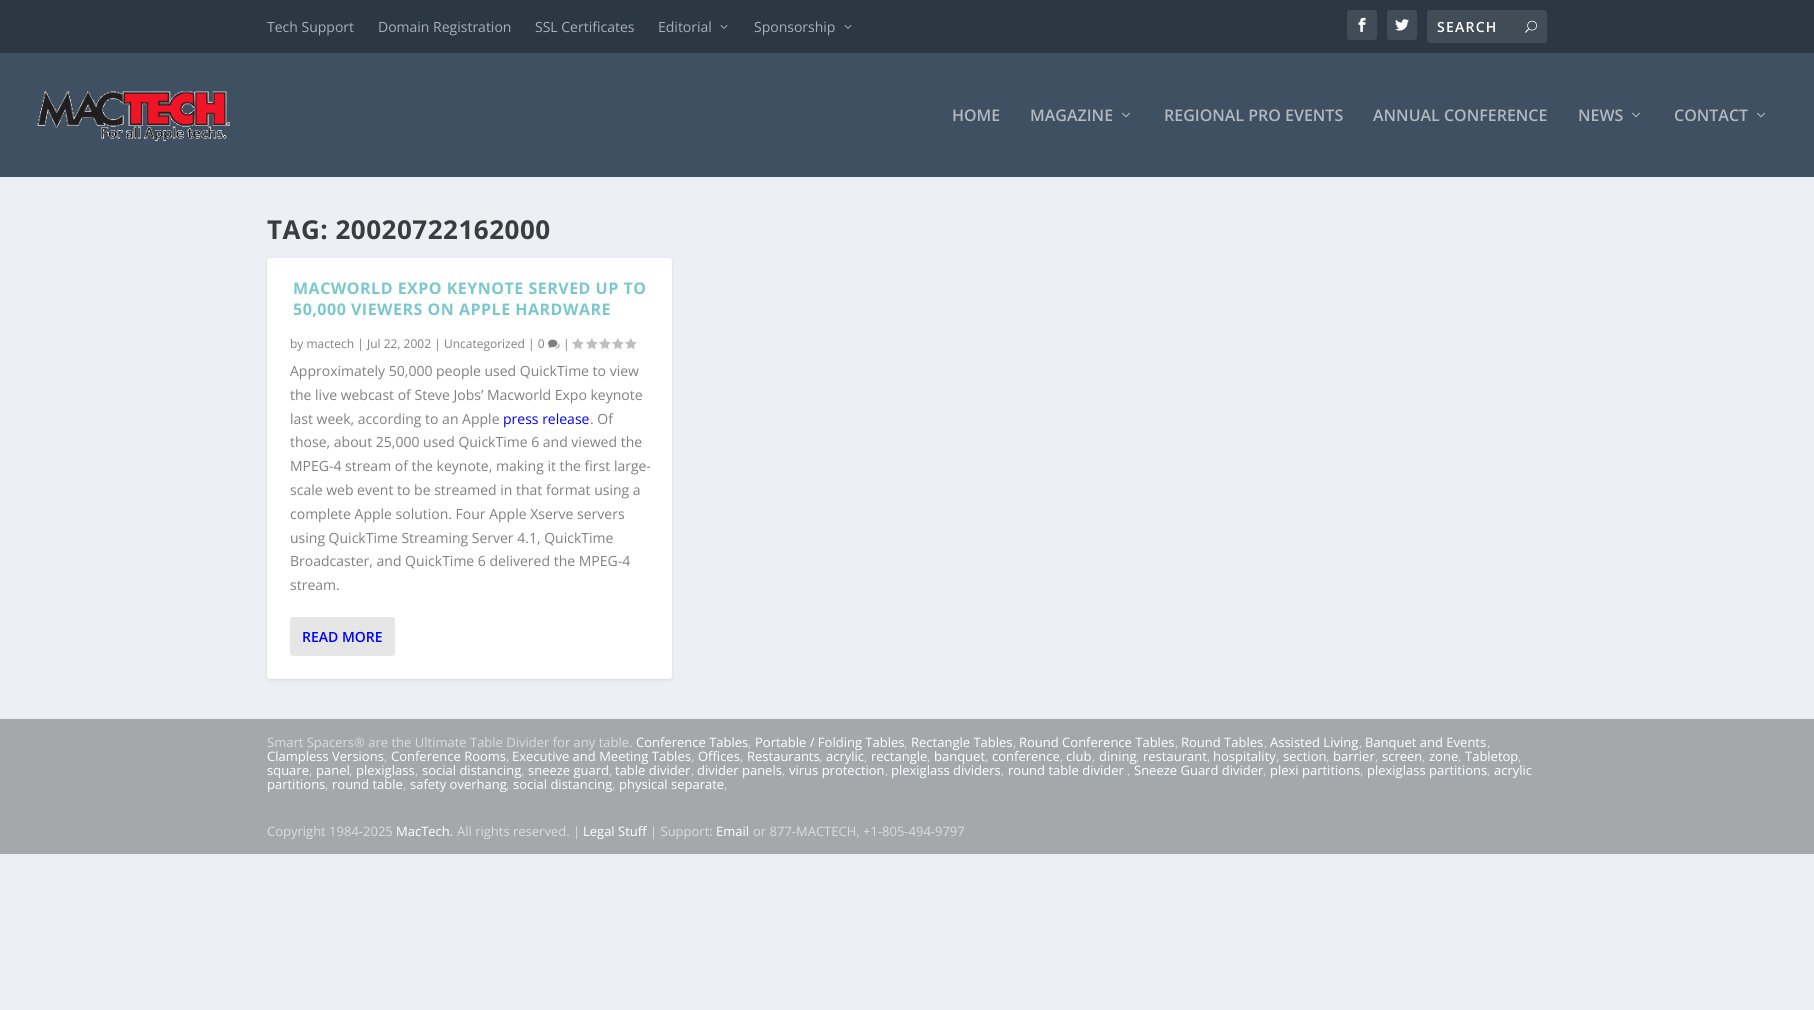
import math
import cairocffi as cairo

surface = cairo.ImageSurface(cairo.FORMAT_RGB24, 1814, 1010)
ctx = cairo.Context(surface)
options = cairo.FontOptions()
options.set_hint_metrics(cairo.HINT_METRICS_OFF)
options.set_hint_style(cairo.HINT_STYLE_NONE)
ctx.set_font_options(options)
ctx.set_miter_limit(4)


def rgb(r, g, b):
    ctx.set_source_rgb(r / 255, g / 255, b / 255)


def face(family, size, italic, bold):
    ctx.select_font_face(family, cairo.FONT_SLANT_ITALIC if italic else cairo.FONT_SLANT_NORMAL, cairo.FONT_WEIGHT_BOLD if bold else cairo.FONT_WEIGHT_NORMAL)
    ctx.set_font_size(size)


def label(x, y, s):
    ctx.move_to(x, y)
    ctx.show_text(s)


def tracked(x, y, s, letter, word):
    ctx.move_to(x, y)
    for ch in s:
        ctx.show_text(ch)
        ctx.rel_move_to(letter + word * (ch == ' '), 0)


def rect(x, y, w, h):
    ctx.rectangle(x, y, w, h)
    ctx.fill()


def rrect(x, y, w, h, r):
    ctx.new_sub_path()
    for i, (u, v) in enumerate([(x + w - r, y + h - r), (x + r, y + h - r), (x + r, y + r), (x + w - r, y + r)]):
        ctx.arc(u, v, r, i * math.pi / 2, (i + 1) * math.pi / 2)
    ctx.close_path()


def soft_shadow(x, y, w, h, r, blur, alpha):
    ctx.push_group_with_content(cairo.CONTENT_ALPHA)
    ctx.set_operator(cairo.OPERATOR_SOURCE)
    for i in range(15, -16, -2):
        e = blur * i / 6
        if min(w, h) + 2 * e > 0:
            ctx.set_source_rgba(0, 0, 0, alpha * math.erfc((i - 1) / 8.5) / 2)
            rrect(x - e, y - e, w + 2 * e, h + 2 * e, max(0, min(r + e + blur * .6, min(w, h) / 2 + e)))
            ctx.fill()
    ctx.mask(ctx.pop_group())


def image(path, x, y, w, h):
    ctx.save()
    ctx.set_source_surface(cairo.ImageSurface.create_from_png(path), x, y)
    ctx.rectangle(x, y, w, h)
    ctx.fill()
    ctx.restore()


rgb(236, 240, 245)
ctx.paint()
rgb(43, 56, 67)
rect(0, 0, 1814, 53)
face('Open Sans', 14, 0, 0)
rgb(170, 175, 180)
label(267, 32, 'Tech Support')
label(378, 32, 'Domain Registration')
label(535, 32, 'SSL Certificates')
label(658, 32, 'Editorial')
image('image0.png', 720, 25, 8, 4)
label(754, 32, 'Sponsorship')
image('image0.png', 844, 25, 8, 4)
rgb(64, 76, 86)
rrect(1347, 10, 30, 30, 3)
ctx.fill()
image('image1.png', 1358, 17, 8, 15)
rrect(1387, 10, 30, 30, 3)
ctx.fill()
image('image2.png', 1395, 19, 14, 12)
rrect(1427, 10, 120, 33, 3)
ctx.fill()
face('Open Sans SemiBold', 14, 0, 0)
rgb(255, 255, 255)
tracked(1437, 32, 'SEARCH', 1.25, 0)
image('image3.png', 1525, 20, 12, 13)
rgb(62, 80, 98)
rect(0, 53, 1814, 124)
image('image4.png', 37, 91, 193, 50)
face('Open Sans SemiBold', 16, 0, 0)
rgb(178, 185, 192)
label(952, 121, 'HOME')
label(1030, 121, 'MAGAZINE')
image('image5.png', 1122, 112, 8, 6)
label(1164, 121, 'REGIONAL PRO EVENTS')
label(1373, 121, 'ANNUAL CONFERENCE')
label(1578, 121, 'NEWS')
image('image5.png', 1632, 112, 8, 6)
label(1674, 121, 'CONTACT')
image('image5.png', 1757, 112, 8, 6)
face('Open Sans', 26, 0, 1)
rgb(59, 60, 61)
tracked(267, 239, 'TAG: 20020722162000', 0.5, 0)
rgb(0, 0, 0)
soft_shadow(267, 259, 405, 421, 3, 1.5, 0.1)
rgb(255, 255, 255)
rrect(267, 258, 405, 421, 3)
ctx.fill()
face('Open Sans', 16, 0, 1)
rgb(122, 200, 204)
tracked(293, 294, 'MACWORLD EXPO KEYNOTE SERVED UP TO', 0.5, 0)
tracked(293, 315, '50,000 VIEWERS ON APPLE HARDWARE', 0.5, 0)
face('Open Sans', 12, 0, 0)
rgb(128, 128, 128)
label(290, 348, 'by mactech | Jul 22, 2002 | Uncategorized | 0')
image('image6.png', 548, 339, 12, 10)
label(563, 348, '|')
image('image7.png', 572, 338, 12, 12)
image('image7.png', 586, 338, 12, 12)
image('image7.png', 599, 338, 12, 12)
image('image7.png', 612, 338, 12, 12)
image('image7.png', 625, 338, 12, 12)
face('Open Sans', 14, 0, 0)
label(290, 376, 'Approximately 50,000 people used QuickTime to view')
label(290, 400, 'the live webcast of Steve Jobs’ Macworld Expo keynote')
label(290, 424, 'last week, according to an Apple')
rgb(0, 0, 255)
label(503, 424, 'press release')
rgb(128, 128, 128)
label(590, 424, '. Of')
label(290, 447, 'those, about 25,000 used QuickTime 6 and viewed the')
label(290, 471, 'MPEG-4 stream of the keynote, making it the first large-')
label(290, 495, 'scale web event to be streamed in that format using a')
label(290, 519, 'complete Apple solution. Four Apple Xserve servers')
label(290, 543, 'using QuickTime Streaming Server 4.1, QuickTime')
label(290, 566, 'Broadcaster, and QuickTime 6 delivered the MPEG-4')
label(290, 590, 'stream.')
rgb(230, 230, 230)
rrect(290, 617, 105, 39, 3)
ctx.fill()
face('Open Sans SemiBold', 14, 0, 0)
rgb(0, 0, 255)
label(302, 642, 'READ MORE')
rgb(165, 168, 171)
rect(0, 719, 1814, 135)
face('Open Sans', 13, 0, 0)
rgb(219, 220, 221)
label(267, 747, 'Smart Spacers® are the Ultimate Table Divider for any table.')
rgb(255, 255, 255)
label(636, 747, 'Conference Tables')
rgb(219, 220, 221)
label(748, 747, ',')
rgb(255, 255, 255)
label(755, 747, 'Portable / Folding Tables')
rgb(219, 220, 221)
label(904, 747, ',')
rgb(255, 255, 255)
label(911, 747, 'Rectangle Tables')
rgb(219, 220, 221)
label(1013, 747, ',')
rgb(255, 255, 255)
label(1019, 747, 'Round Conference Tables')
rgb(219, 220, 221)
label(1175, 747, ',')
rgb(255, 255, 255)
label(1181, 747, 'Round Tables')
rgb(219, 220, 221)
label(1264, 747, ',')
rgb(255, 255, 255)
label(1270, 747, 'Assisted Living')
rgb(219, 220, 221)
label(1359, 747, ',')
rgb(255, 255, 255)
label(1365, 747, 'Banquet and Events')
rgb(219, 220, 221)
label(1487, 747, ',')
rgb(255, 255, 255)
label(267, 761, 'Clampless Versions')
rgb(219, 220, 221)
label(384, 761, ',')
rgb(255, 255, 255)
label(391, 761, 'Conference Rooms')
rgb(219, 220, 221)
label(506, 761, ',')
rgb(255, 255, 255)
label(512, 761, 'Executive and Meeting Tables')
rgb(219, 220, 221)
label(691, 761, ',')
rgb(255, 255, 255)
label(698, 761, 'Offices')
rgb(219, 220, 221)
label(740, 761, ',')
rgb(255, 255, 255)
label(747, 761, 'Restaurants')
rgb(219, 220, 221)
label(819, 761, ',')
rgb(255, 255, 255)
label(826, 761, 'acrylic')
rgb(219, 220, 221)
label(864, 761, ',')
rgb(255, 255, 255)
label(871, 761, 'rectangle')
rgb(219, 220, 221)
label(927, 761, ',')
rgb(255, 255, 255)
label(934, 761, 'banquet')
rgb(219, 220, 221)
label(985, 761, ',')
rgb(255, 255, 255)
label(992, 761, 'conference')
rgb(219, 220, 221)
label(1060, 761, ',')
rgb(255, 255, 255)
label(1066, 761, 'club')
rgb(219, 220, 221)
label(1092, 761, ',')
rgb(255, 255, 255)
label(1099, 761, 'dining')
rgb(219, 220, 221)
label(1136, 761, ',')
rgb(255, 255, 255)
label(1143, 761, 'restaurant')
rgb(219, 220, 221)
label(1207, 761, ',')
rgb(255, 255, 255)
label(1213, 761, 'hospitality')
rgb(219, 220, 221)
label(1276, 761, ',')
rgb(255, 255, 255)
label(1283, 761, 'section')
rgb(219, 220, 221)
label(1326, 761, ',')
rgb(255, 255, 255)
label(1333, 761, 'barrier')
rgb(219, 220, 221)
label(1375, 761, ',')
rgb(255, 255, 255)
label(1382, 761, 'screen')
rgb(219, 220, 221)
label(1422, 761, ',')
rgb(255, 255, 255)
label(1429, 761, 'zone')
rgb(219, 220, 221)
label(1458, 761, ',')
rgb(255, 255, 255)
label(1465, 761, 'Tabletop')
rgb(219, 220, 221)
label(1518, 761, ',')
rgb(255, 255, 255)
label(267, 775, 'square')
rgb(219, 220, 221)
label(309, 775, ',')
rgb(255, 255, 255)
label(316, 775, 'panel')
rgb(219, 220, 221)
label(349, 775, ',')
rgb(255, 255, 255)
label(356, 775, 'plexiglass')
rgb(219, 220, 221)
label(415, 775, ',')
rgb(255, 255, 255)
label(422, 775, 'social distancing')
rgb(219, 220, 221)
label(521, 775, ',')
rgb(255, 255, 255)
label(528, 775, 'sneeze guard')
rgb(219, 220, 221)
label(609, 775, ',')
rgb(255, 255, 255)
label(615, 775, 'table divider')
rgb(219, 220, 221)
label(691, 775, ',')
rgb(255, 255, 255)
label(697, 775, 'divider panels')
rgb(219, 220, 221)
label(782, 775, ',')
rgb(255, 255, 255)
label(789, 775, 'virus protection')
rgb(219, 220, 221)
label(885, 775, ',')
rgb(255, 255, 255)
label(891, 775, 'plexiglass dividers')
rgb(219, 220, 221)
label(1001, 775, ',')
rgb(255, 255, 255)
label(1008, 775, 'round table divider')
rgb(219, 220, 221)
label(1127, 775, ',')
rgb(255, 255, 255)
label(1134, 775, 'Sneeze Guard divider')
rgb(219, 220, 221)
label(1263, 775, ',')
rgb(255, 255, 255)
label(1270, 775, 'plexi partitions')
rgb(219, 220, 221)
label(1360, 775, ',')
rgb(255, 255, 255)
label(1367, 775, 'plexiglass partitions')
rgb(219, 220, 221)
label(1487, 775, ',')
rgb(255, 255, 255)
label(1494, 775, 'acrylic')
label(267, 789, 'partitions')
rgb(219, 220, 221)
label(325, 789, ',')
rgb(255, 255, 255)
label(332, 789, 'round table')
rgb(219, 220, 221)
label(403, 789, ',')
rgb(255, 255, 255)
label(410, 789, 'safety overhang')
rgb(219, 220, 221)
label(506, 789, ',')
rgb(255, 255, 255)
label(513, 789, 'social distancing')
rgb(219, 220, 221)
label(612, 789, ',')
rgb(255, 255, 255)
label(619, 789, 'physical separate')
rgb(219, 220, 221)
label(724, 789, ',')
label(267, 836, 'Copyright 1984-2025')
rgb(255, 255, 255)
label(396, 836, 'MacTech.')
rgb(219, 220, 221)
label(457, 836, 'All rights reserved. |')
rgb(255, 255, 255)
label(583, 836, 'Legal Stuff')
rgb(219, 220, 221)
label(650, 836, '| Support:')
rgb(255, 255, 255)
label(716, 836, 'Email')
rgb(219, 220, 221)
label(753, 836, 'or 877-MACTECH, +1-805-494-9797')
surface.write_to_png('render.png')
